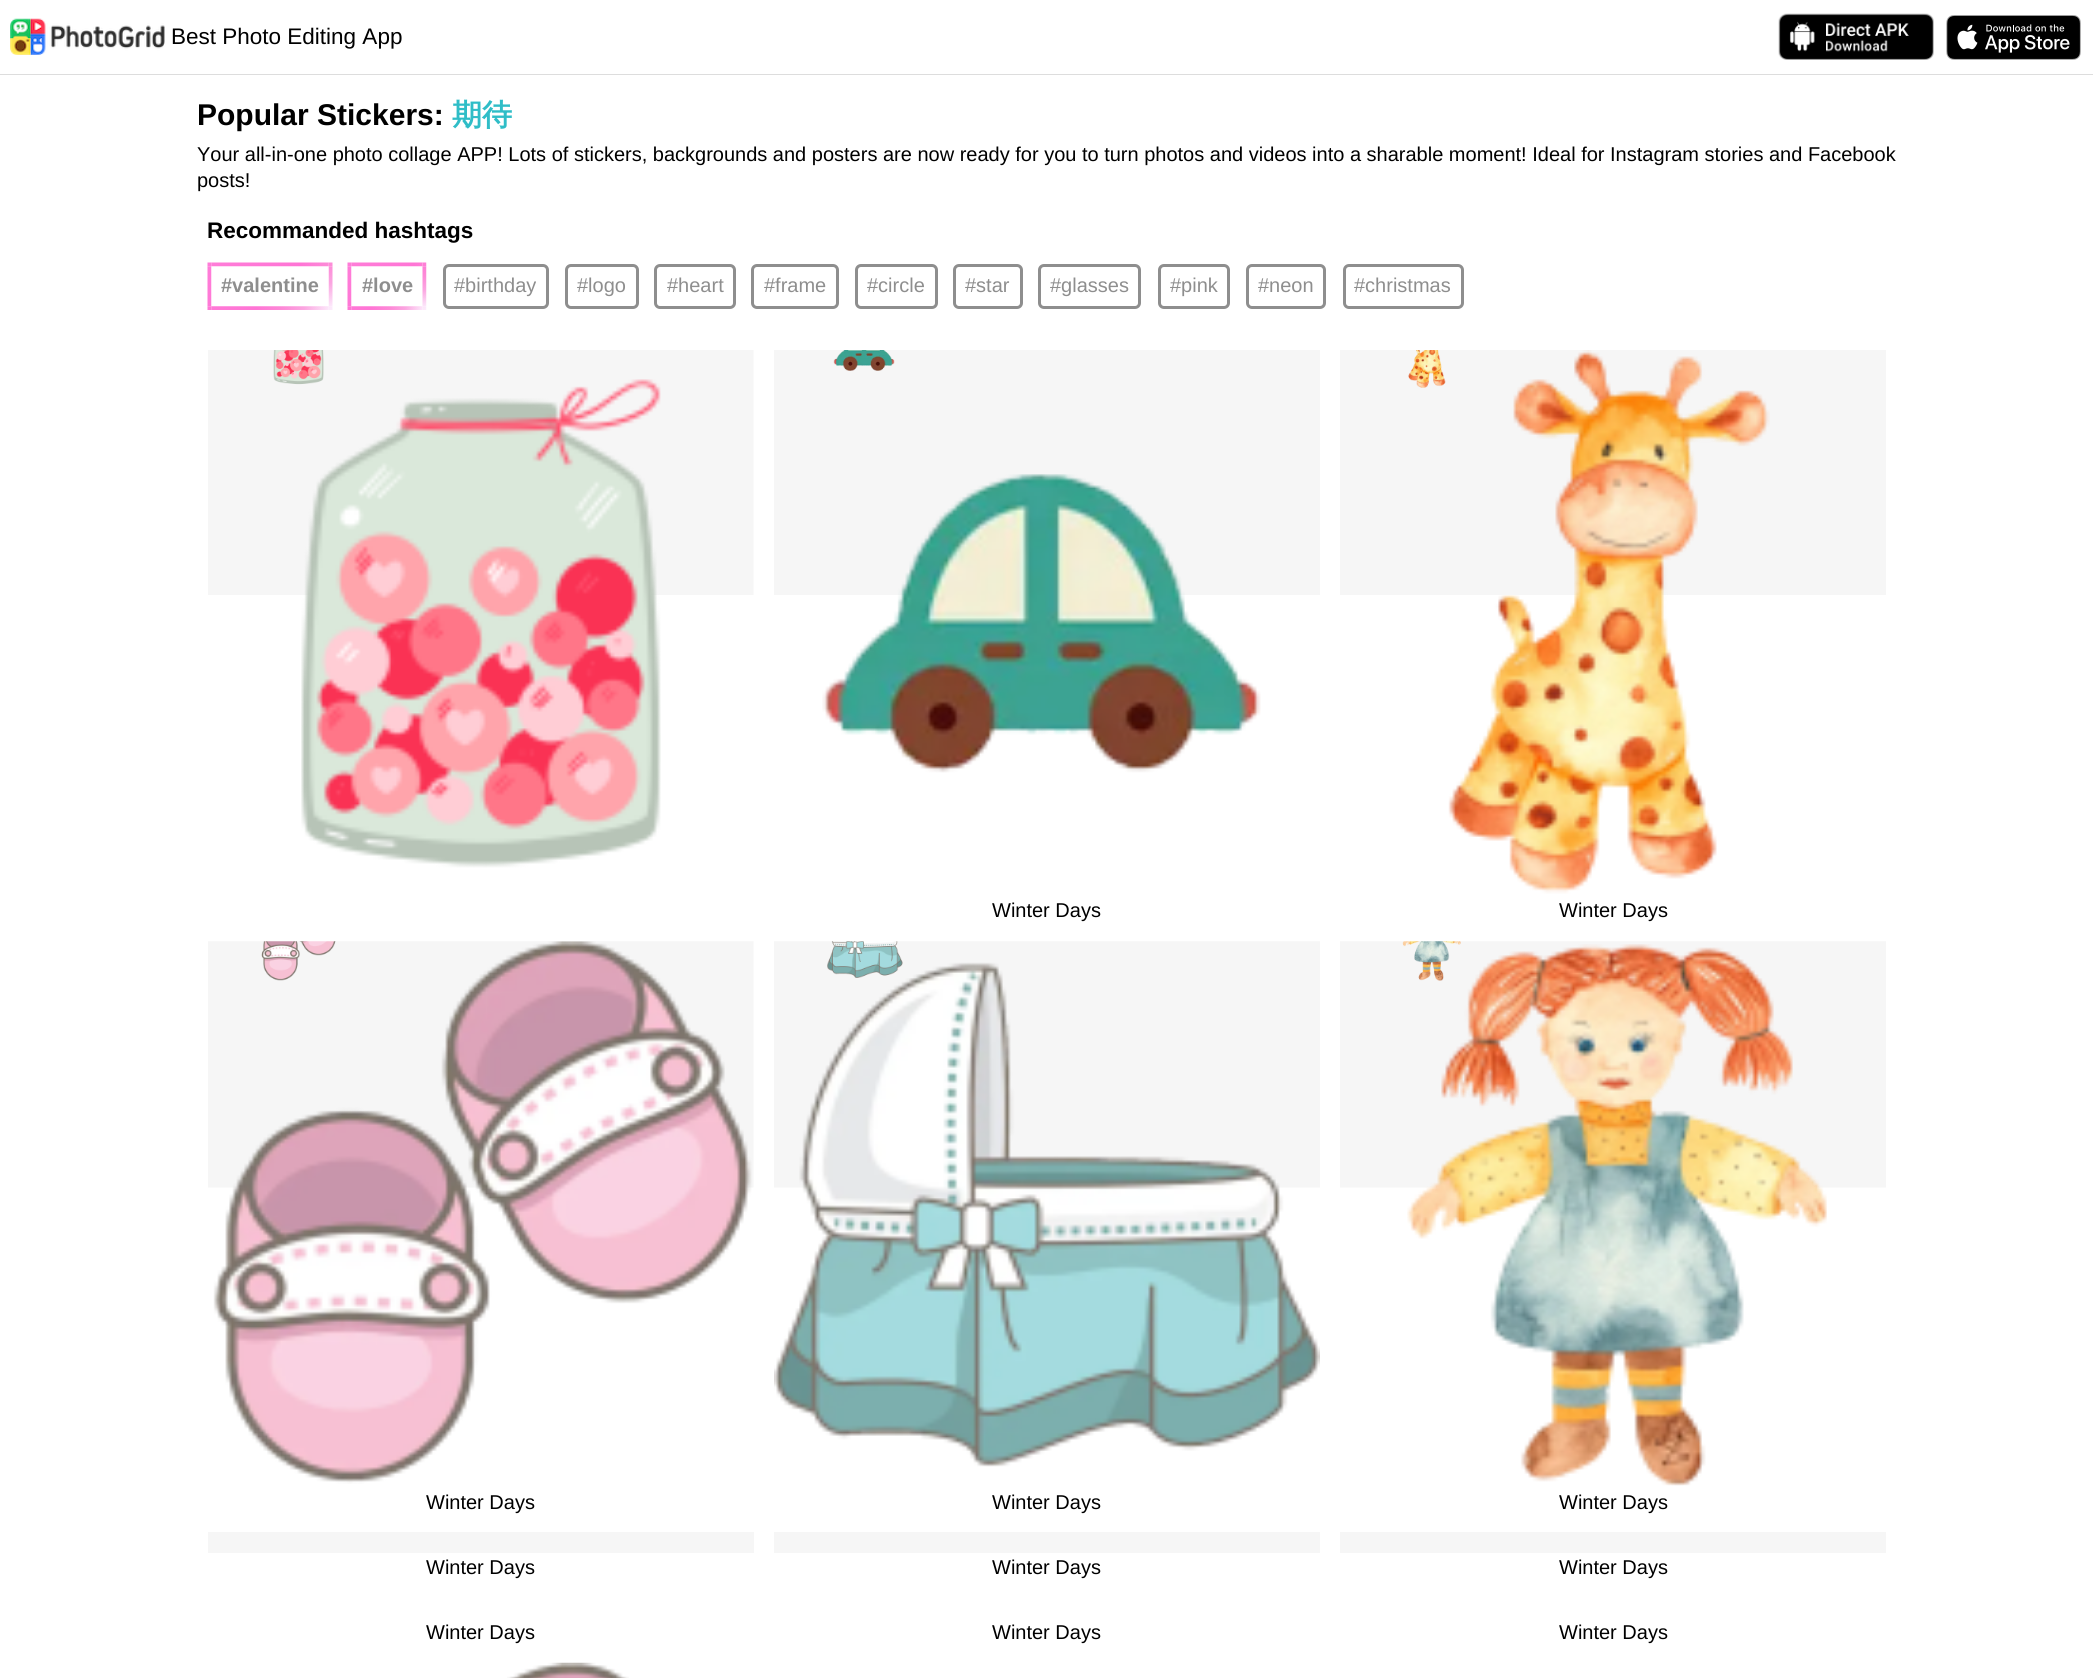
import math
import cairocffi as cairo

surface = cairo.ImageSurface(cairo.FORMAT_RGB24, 2093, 1678)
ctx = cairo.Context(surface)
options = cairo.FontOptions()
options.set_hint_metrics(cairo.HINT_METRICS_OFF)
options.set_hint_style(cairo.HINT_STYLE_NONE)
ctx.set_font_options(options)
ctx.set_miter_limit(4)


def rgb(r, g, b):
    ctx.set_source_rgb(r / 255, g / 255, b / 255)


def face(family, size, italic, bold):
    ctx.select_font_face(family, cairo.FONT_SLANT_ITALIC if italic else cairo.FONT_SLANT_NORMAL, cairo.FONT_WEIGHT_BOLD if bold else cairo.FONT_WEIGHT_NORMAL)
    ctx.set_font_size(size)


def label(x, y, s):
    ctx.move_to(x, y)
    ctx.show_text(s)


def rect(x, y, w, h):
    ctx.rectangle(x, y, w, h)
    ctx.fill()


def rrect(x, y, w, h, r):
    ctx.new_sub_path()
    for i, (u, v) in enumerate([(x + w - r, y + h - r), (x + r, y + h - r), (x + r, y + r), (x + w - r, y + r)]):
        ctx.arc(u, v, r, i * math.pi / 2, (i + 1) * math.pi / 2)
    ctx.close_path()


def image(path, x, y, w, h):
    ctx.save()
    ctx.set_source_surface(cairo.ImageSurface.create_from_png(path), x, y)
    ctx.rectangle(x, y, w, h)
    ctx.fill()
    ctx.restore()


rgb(255, 255, 255)
ctx.paint()
rgb(221, 221, 221)
rect(0, 74, 2093, 1)
image('image0.png', 10, 18, 155, 37)
face('Liberation Sans', 22.5, 0, 0)
rgb(0, 0, 0)
label(171, 44, 'Best Photo Editing App')
image('image1.png', 1778, 13, 156, 47)
image('image2.png', 1946, 15, 135, 45)
face('Liberation Sans', 30, 0, 1)
label(197, 125, 'Popular Stickers:')
face('WenQuanYi Zen Hei', 30, 0, 1)
rgb(47, 189, 199)
label(452, 125, '期待')
face('Liberation Sans', 20, 0, 0)
rgb(0, 0, 0)
label(197, 161, 'Your all-in-one photo collage APP! Lots of stickers, backgrounds and posters are now ready for you to turn photos and videos into a sharable moment! Ideal for Instagram stories and Facebook')
label(197, 187, 'posts!')
face('Liberation Sans', 22.5, 0, 1)
label(207, 238, 'Recommanded hashtags')
image('image3.png', 207, 262, 126, 48)
face('Liberation Sans', 20, 0, 1)
rgb(142, 142, 142)
label(221, 292, '#valentine')
image('image4.png', 347, 262, 80, 48)
label(362, 292, '#love')
rrect(444.5, 265.5, 103, 42, 4.5)
ctx.set_line_width(3)
ctx.stroke()
face('Liberation Sans', 20, 0, 0)
label(454, 292, '#birthday')
rrect(566.5, 265.5, 71, 42, 4.5)
ctx.stroke()
label(577, 292, '#logo')
rrect(655.5, 265.5, 79, 42, 4.5)
ctx.stroke()
label(667, 292, '#heart')
rrect(752.5, 265.5, 85, 42, 4.5)
ctx.stroke()
label(764, 292, '#frame')
rrect(856.5, 265.5, 80, 42, 4.5)
ctx.stroke()
label(867, 292, '#circle')
rrect(954.5, 265.5, 67, 42, 4.5)
ctx.stroke()
label(965, 292, '#star')
rrect(1039.5, 265.5, 100, 42, 4.5)
ctx.stroke()
label(1050, 292, '#glasses')
rrect(1159.5, 265.5, 69, 42, 4.5)
ctx.stroke()
label(1170, 292, '#pink')
rrect(1247.5, 265.5, 77, 42, 4.5)
ctx.stroke()
label(1258, 292, '#neon')
rrect(1344.5, 265.5, 118, 42, 4.5)
ctx.stroke()
label(1354, 292, '#christmas')
image('image5.png', 208, 350, 546, 245)
image('image6.png', 301, 379, 360, 489)
image('image7.png', 774, 350, 546, 245)
image('image8.png', 822, 474, 439, 299)
rgb(0, 0, 0)
label(992, 917, 'Winter Days')
image('image9.png', 1340, 350, 546, 245)
image('image10.png', 1448, 350, 322, 544)
label(1559, 917, 'Winter Days')
image('image11.png', 208, 941, 546, 247)
image('image12.png', 213, 941, 539, 543)
label(426, 1509, 'Winter Days')
image('image13.png', 774, 941, 546, 247)
image('image14.png', 774, 962, 546, 505)
label(992, 1509, 'Winter Days')
image('image15.png', 1340, 941, 546, 247)
image('image16.png', 1407, 944, 420, 542)
label(1559, 1509, 'Winter Days')
rgb(246, 246, 246)
rect(208, 1532, 546, 21)
rgb(0, 0, 0)
label(426, 1574, 'Winter Days')
rgb(246, 246, 246)
rect(774, 1532, 546, 21)
rgb(0, 0, 0)
label(992, 1574, 'Winter Days')
rgb(246, 246, 246)
rect(1340, 1532, 546, 21)
rgb(0, 0, 0)
label(1559, 1574, 'Winter Days')
label(426, 1639, 'Winter Days')
label(992, 1639, 'Winter Days')
label(1559, 1639, 'Winter Days')
image('image17.png', 507, 1662, 122, 16)
surface.write_to_png('render.png')
